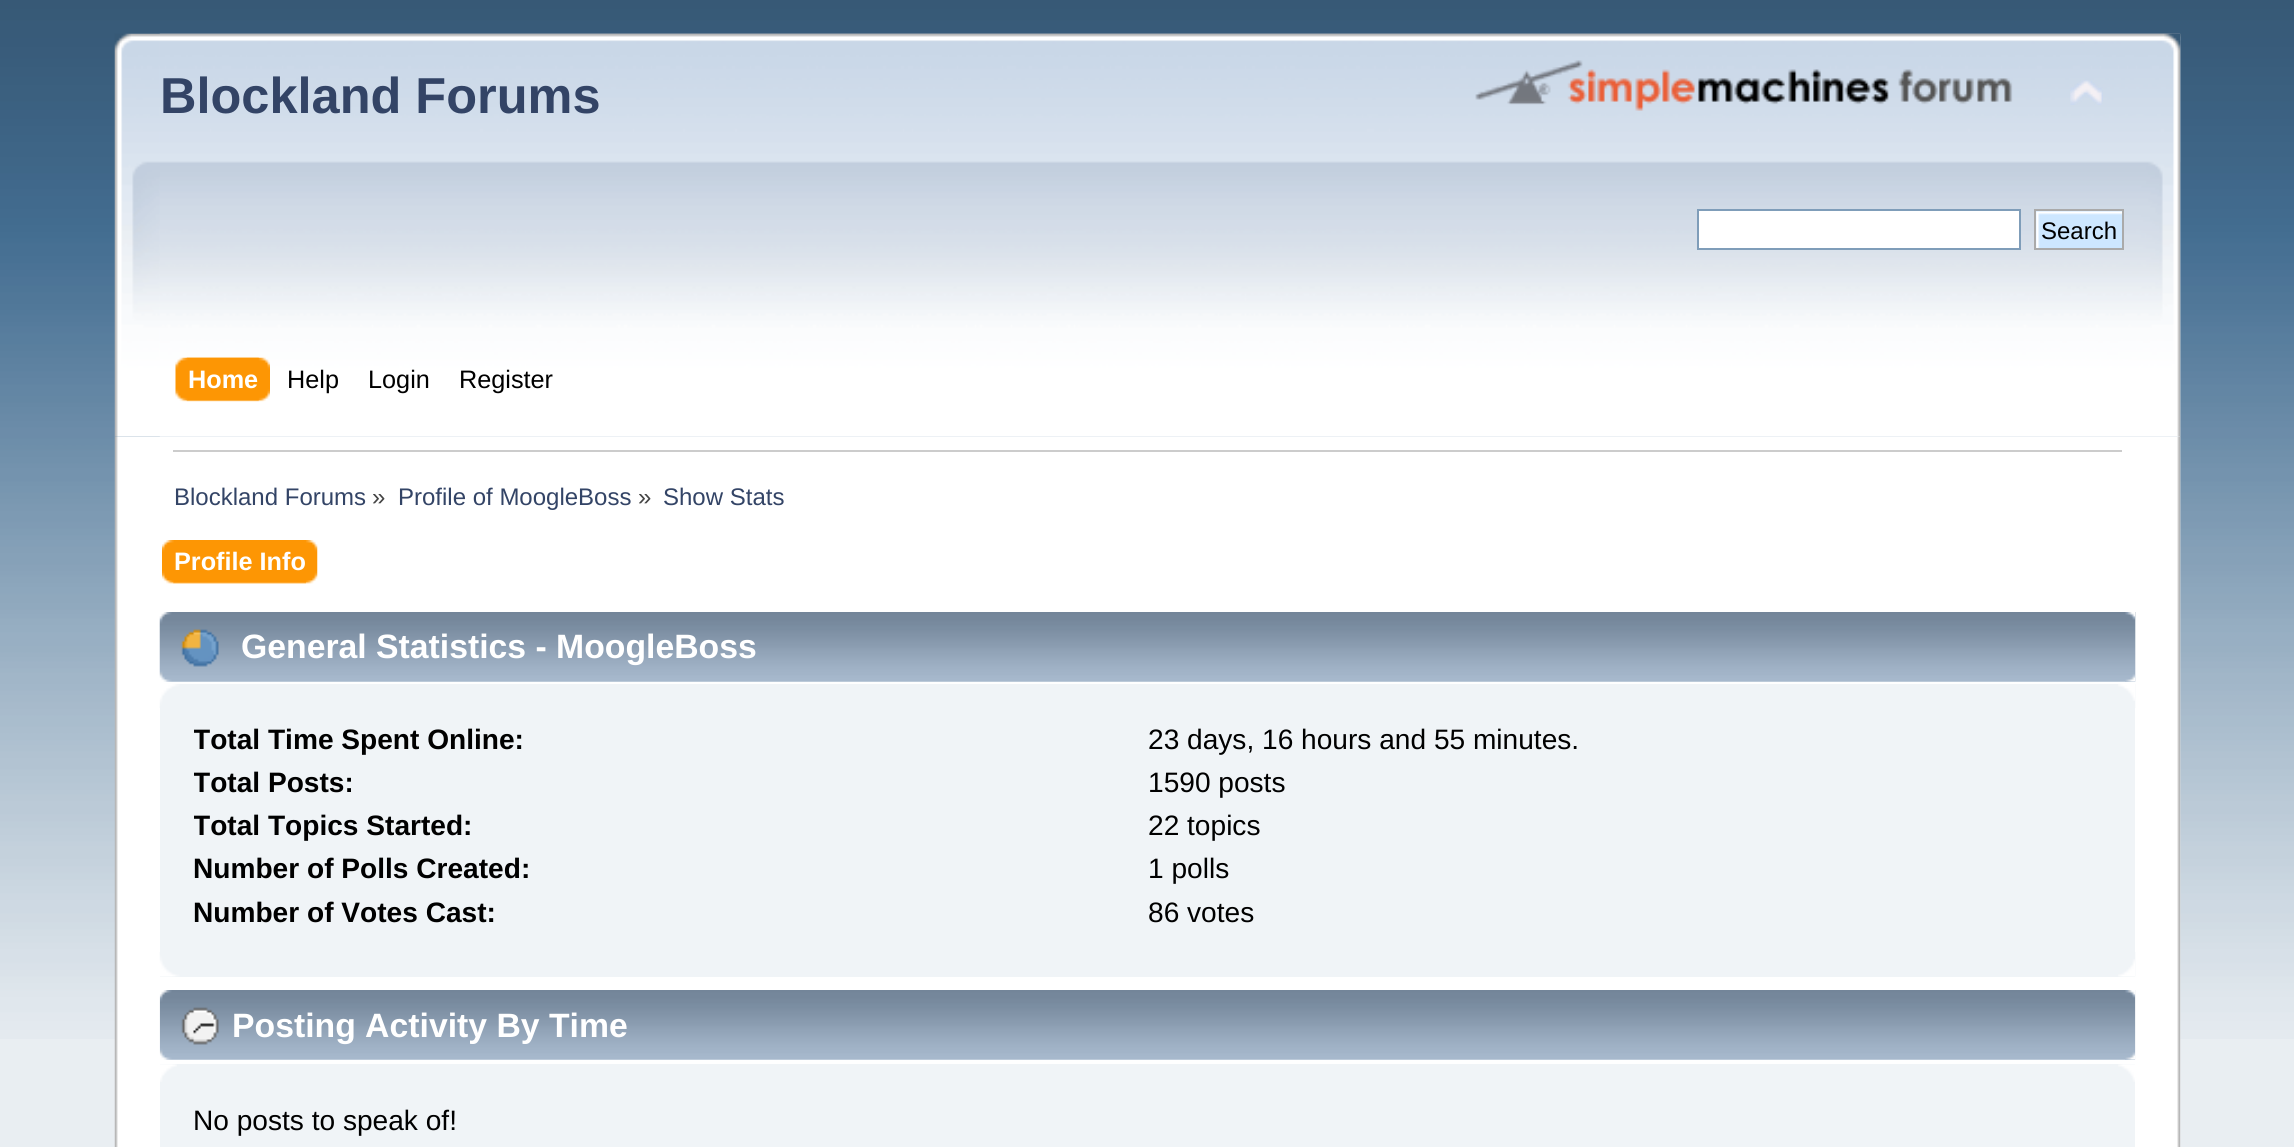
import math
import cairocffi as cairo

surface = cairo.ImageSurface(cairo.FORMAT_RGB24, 2294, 1147)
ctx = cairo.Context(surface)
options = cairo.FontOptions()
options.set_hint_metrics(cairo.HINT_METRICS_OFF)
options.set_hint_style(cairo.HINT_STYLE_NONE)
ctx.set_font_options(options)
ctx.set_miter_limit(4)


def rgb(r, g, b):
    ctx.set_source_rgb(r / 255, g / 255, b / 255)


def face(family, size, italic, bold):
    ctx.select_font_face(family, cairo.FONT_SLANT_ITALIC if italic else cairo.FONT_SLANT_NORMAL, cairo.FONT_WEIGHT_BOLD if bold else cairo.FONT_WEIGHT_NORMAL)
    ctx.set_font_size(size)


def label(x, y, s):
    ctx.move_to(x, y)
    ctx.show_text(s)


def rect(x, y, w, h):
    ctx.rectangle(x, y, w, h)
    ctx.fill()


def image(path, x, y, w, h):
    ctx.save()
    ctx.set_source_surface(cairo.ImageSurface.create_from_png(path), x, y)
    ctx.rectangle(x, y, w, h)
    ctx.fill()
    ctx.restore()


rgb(233, 238, 242)
ctx.paint()
image('image0.png', 0, 0, 2294, 1039)
image('image1.png', 114, 33, 2067, 404)
image('image2.png', 159, 33, 2022, 404)
face('Liberation Sans', 50.5, 0, 1)
rgb(51, 68, 102)
label(160, 113, 'Blockland Forums')
image('image3.png', 1475, 60, 538, 51)
image('image4.png', 2070, 80, 33, 25)
rgb(255, 255, 255)
ctx.rectangle(1698, 210, 322, 39)
ctx.fill_preserve()
rgb(127, 157, 185)
ctx.stroke()
rgb(205, 231, 255)
rect(2036, 211, 86, 37)
image('image5.png', 2036, 211, 86, 37)
ctx.rectangle(2035, 210, 88, 39)
rgb(170, 170, 170)
ctx.stroke()
face('Liberation Sans', 24, 0, 0)
rgb(0, 0, 0)
label(2041, 239, 'Search')
image('image6.png', 186, 357, 84, 45)
image('image7.png', 175, 357, 84, 45)
face('Liberation Sans', 25.25, 0, 1)
rgb(255, 255, 255)
label(188, 388, 'Home')
face('Liberation Sans', 25.25, 0, 0)
rgb(0, 0, 0)
label(287, 388, 'Help')
label(368, 388, 'Login')
label(459, 388, 'Register')
image('image8.png', 114, 436, 2067, 711)
image('image9.png', 2177, 436, 4, 711)
rgb(204, 204, 204)
rect(173, 450, 1949, 2)
face('Liberation Sans', 24, 0, 0)
rgb(51, 68, 102)
label(174, 505, 'Blockland Forums')
rgb(68, 68, 68)
label(372, 505, '»')
rgb(51, 68, 102)
label(398, 505, 'Profile of MoogleBoss')
rgb(68, 68, 68)
label(638, 505, '»')
rgb(51, 68, 102)
label(663, 505, 'Show Stats')
image('image10.png', 173, 540, 145, 44)
image('image11.png', 162, 540, 144, 44)
face('Liberation Sans', 25.25, 0, 1)
rgb(255, 255, 255)
label(174, 570, 'Profile Info')
image('image12.png', 159, 612, 1977, 70)
image('image13.png', 2125, 612, 11, 70)
image('image14.png', 181, 629, 38, 38)
face('Liberation Sans', 33.75, 0, 1)
label(241, 658, 'General Statistics - MoogleBoss')
rgb(240, 244, 247)
rect(160, 708, 1975, 269)
image('image15.png', 159, 684, 1977, 24)
image('image16.png', 2118, 684, 17, 17)
ctx.save()
ctx.rectangle(194, 722, 1908, 216)
ctx.clip()
face('Liberation Sans', 28.1, 0, 1)
rgb(0, 0, 0)
label(193, 749, 'Total Time Spent Online:')
ctx.restore()
face('Liberation Sans', 28.1, 0, 0)
rgb(0, 0, 0)
label(1148, 749, '23 days, 16 hours and 55 minutes.')
ctx.save()
ctx.rectangle(194, 722, 1908, 216)
ctx.clip()
face('Liberation Sans', 28.1, 0, 1)
label(193, 792, 'Total Posts:')
ctx.restore()
label(1148, 792, '1590 posts')
ctx.save()
ctx.rectangle(194, 722, 1908, 216)
ctx.clip()
face('Liberation Sans', 28.1, 0, 1)
label(193, 835, 'Total Topics Started:')
ctx.restore()
label(1148, 835, '22 topics')
face('Liberation Sans', 28.1, 0, 1)
label(193, 878, 'Number of Polls Created:')
face('Liberation Sans', 28.1, 0, 0)
label(1148, 878, '1 polls')
face('Liberation Sans', 28.1, 0, 1)
label(193, 922, 'Number of Votes Cast:')
face('Liberation Sans', 28.1, 0, 0)
label(1148, 922, '86 votes')
image('image17.png', 159, 952, 1977, 25)
image('image18.png', 2118, 959, 17, 18)
image('image19.png', 159, 990, 1977, 70)
image('image20.png', 2125, 990, 11, 70)
image('image21.png', 181, 1007, 38, 38)
face('Liberation Sans', 33.75, 0, 1)
rgb(255, 255, 255)
label(232, 1037, 'Posting Activity By Time')
rgb(240, 244, 247)
rect(160, 1064, 1975, 83)
image('image22.png', 160, 1064, 17, 18)
image('image23.png', 2118, 1064, 17, 18)
face('Liberation Sans', 28.1, 0, 0)
rgb(0, 0, 0)
label(193, 1130, 'No posts to speak of!')
surface.write_to_png('render.png')
